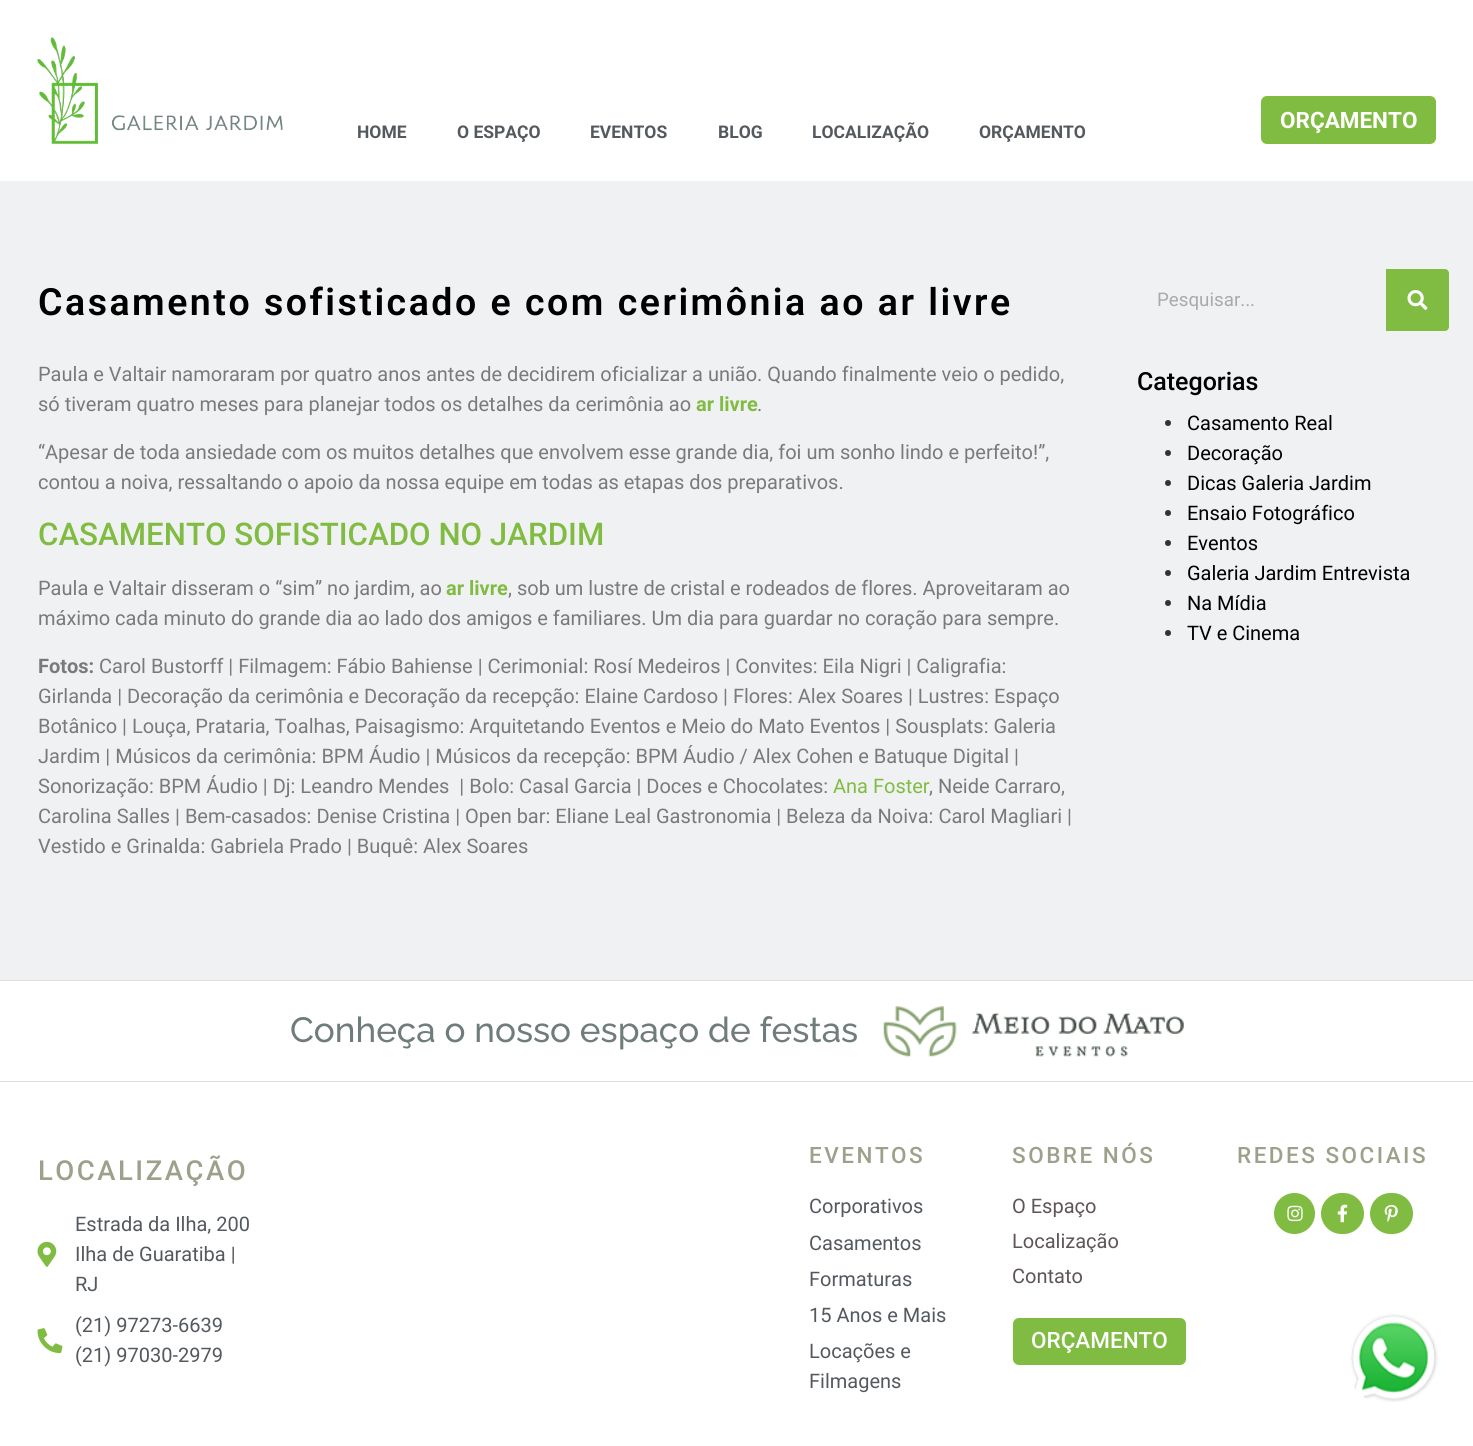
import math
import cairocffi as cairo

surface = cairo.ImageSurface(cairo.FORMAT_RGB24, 1473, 1446)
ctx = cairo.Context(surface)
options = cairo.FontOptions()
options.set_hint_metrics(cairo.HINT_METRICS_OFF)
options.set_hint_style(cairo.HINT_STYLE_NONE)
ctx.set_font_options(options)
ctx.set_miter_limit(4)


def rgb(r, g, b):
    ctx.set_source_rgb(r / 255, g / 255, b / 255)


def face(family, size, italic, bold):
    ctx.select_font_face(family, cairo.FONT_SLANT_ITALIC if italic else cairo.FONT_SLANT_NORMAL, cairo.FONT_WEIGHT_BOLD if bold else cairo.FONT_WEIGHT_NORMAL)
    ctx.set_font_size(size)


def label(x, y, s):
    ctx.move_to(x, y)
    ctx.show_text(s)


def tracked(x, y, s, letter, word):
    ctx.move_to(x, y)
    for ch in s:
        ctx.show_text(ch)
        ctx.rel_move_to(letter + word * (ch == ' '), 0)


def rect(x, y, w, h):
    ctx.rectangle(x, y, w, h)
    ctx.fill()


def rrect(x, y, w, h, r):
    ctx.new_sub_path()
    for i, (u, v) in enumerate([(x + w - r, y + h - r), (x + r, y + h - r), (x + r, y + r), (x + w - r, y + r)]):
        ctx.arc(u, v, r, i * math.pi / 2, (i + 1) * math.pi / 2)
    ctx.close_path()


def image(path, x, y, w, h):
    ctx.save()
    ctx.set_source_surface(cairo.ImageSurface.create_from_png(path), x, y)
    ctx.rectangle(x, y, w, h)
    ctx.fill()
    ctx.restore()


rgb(255, 255, 255)
ctx.paint()
image('image0.png', 37, 37, 246, 107)
face('Roboto', 17.5, 0, 1)
rgb(84, 89, 95)
label(357, 138, 'HOME')
label(457, 138, 'O ESPAÇO')
label(590, 138, 'EVENTOS')
label(718, 138, 'BLOG')
label(812, 138, 'LOCALIZAÇÃO')
label(979, 138, 'ORÇAMENTO')
rgb(129, 188, 66)
rrect(1261, 96, 175, 48, 6)
ctx.fill()
face('Roboto', 22.5, 0, 1)
rgb(255, 255, 255)
label(1280, 128, 'ORÇAMENTO')
rgb(240, 241, 242)
rect(0, 181, 1473, 799)
face('Roboto SemiBold', 37.5, 0, 0)
rgb(0, 0, 0)
tracked(38, 315, 'Casamento sofisticado e com cerimônia ao ar livre', 2.5, 0)
face('Roboto', 20, 0, 0)
rgb(122, 122, 122)
label(38, 381, 'Paula e Valtair namoraram por quatro anos antes de decidirem oficializar a união. Quando finalmente veio o pedido,')
label(38, 411, 'só tiveram quatro meses para planejar todos os detalhes da cerimônia ao')
face('Roboto', 20, 0, 1)
rgb(129, 188, 66)
label(696, 411, 'ar livre')
face('Roboto', 20, 0, 0)
rgb(122, 122, 122)
label(757, 411, '.')
label(38, 459, '“Apesar de toda ansiedade com os muitos detalhes que envolvem esse grande dia, foi um sonho lindo e perfeito!”,')
label(38, 489, 'contou a noiva, ressaltando o apoio da nossa equipe em todas as etapas dos preparativos.')
face('Roboto Medium', 31.25, 0, 0)
rgb(129, 188, 66)
label(38, 545, 'CASAMENTO SOFISTICADO NO JARDIM')
face('Roboto', 20, 0, 0)
rgb(122, 122, 122)
label(38, 595, 'Paula e Valtair disseram o “sim” no jardim, ao')
face('Roboto', 20, 0, 1)
rgb(129, 188, 66)
label(446, 595, 'ar livre')
face('Roboto', 20, 0, 0)
rgb(122, 122, 122)
label(508, 595, ', sob um lustre de cristal e rodeados de flores. Aproveitaram ao')
label(38, 625, 'máximo cada minuto do grande dia ao lado dos amigos e familiares. Um dia para guardar no coração para sempre.')
face('Roboto', 20, 0, 1)
label(38, 673, 'Fotos:')
face('Roboto', 20, 0, 0)
label(99, 673, 'Carol Bustorff | Filmagem: Fábio Bahiense | Cerimonial: Rosí Medeiros | Convites: Eila Nigri | Caligrafia:')
label(38, 703, 'Girlanda | Decoração da cerimônia e Decoração da recepção: Elaine Cardoso | Flores: Alex Soares | Lustres: Espaço')
label(38, 733, 'Botânico | Louça, Prataria, Toalhas, Paisagismo: Arquitetando Eventos e Meio do Mato Eventos | Sousplats: Galeria')
label(38, 763, 'Jardim | Músicos da cerimônia: BPM Áudio | Músicos da recepção: BPM Áudio / Alex Cohen e Batuque Digital |')
label(38, 793, 'Sonorização: BPM Áudio | Dj: Leandro Mendes  | Bolo: Casal Garcia | Doces e Chocolates:')
rgb(129, 188, 66)
label(833, 793, 'Ana Foster')
rgb(122, 122, 122)
label(929, 793, ', Neide Carraro,')
label(38, 823, 'Carolina Salles | Bem-casados: Denise Cristina | Open bar: Eliane Leal Gastronomia | Beleza da Noiva: Carol Magliari |')
label(38, 853, 'Vestido e Grinalda: Gabriela Prado | Buquê: Alex Soares')
face('Roboto', 18.75, 0, 0)
rgb(169, 170, 170)
label(1157, 306, 'Pesquisar...')
rgb(129, 188, 66)
ctx.new_path()
ctx.move_to(1386, 269)
ctx.line_to(1445, 269)
ctx.curve_to(1447, 269, 1449, 271, 1449, 273)
ctx.line_to(1449, 327)
ctx.curve_to(1449, 329, 1447, 331, 1445, 331)
ctx.line_to(1386, 331)
ctx.close_path()
ctx.fill()
image('image1.png', 1407, 290, 21, 20)
face('Roboto Medium', 25, 0, 0)
rgb(0, 0, 0)
label(1137, 390, 'Categorias')
rgb(51, 51, 51)
ctx.new_path()
ctx.arc(1168, 423, 3, 0, 2 * math.pi)
ctx.fill()
face('Roboto', 20, 0, 0)
rgb(0, 0, 0)
label(1187, 430, 'Casamento Real')
rgb(51, 51, 51)
ctx.new_path()
ctx.arc(1168, 453, 3, 0, 2 * math.pi)
ctx.fill()
rgb(0, 0, 0)
label(1187, 460, 'Decoração')
rgb(51, 51, 51)
ctx.new_path()
ctx.arc(1168, 483, 3, 0, 2 * math.pi)
ctx.fill()
rgb(0, 0, 0)
label(1187, 490, 'Dicas Galeria Jardim')
rgb(51, 51, 51)
ctx.new_path()
ctx.arc(1168, 513, 3, 0, 2 * math.pi)
ctx.fill()
rgb(0, 0, 0)
label(1187, 520, 'Ensaio Fotográfico')
rgb(51, 51, 51)
ctx.new_path()
ctx.arc(1168, 543, 3, 0, 2 * math.pi)
ctx.fill()
rgb(0, 0, 0)
label(1187, 550, 'Eventos')
rgb(51, 51, 51)
ctx.new_path()
ctx.arc(1168, 573, 3, 0, 2 * math.pi)
ctx.fill()
rgb(0, 0, 0)
label(1187, 580, 'Galeria Jardim Entrevista')
rgb(51, 51, 51)
ctx.new_path()
ctx.arc(1168, 603, 3, 0, 2 * math.pi)
ctx.fill()
rgb(0, 0, 0)
label(1187, 610, 'Na Mídia')
rgb(51, 51, 51)
ctx.new_path()
ctx.arc(1168, 633, 3, 0, 2 * math.pi)
ctx.fill()
rgb(0, 0, 0)
label(1187, 640, 'TV e Cinema')
rgb(222, 222, 222)
rect(0, 980, 1473, 1)
rect(0, 1081, 1473, 1)
face('Raleway Medium', 35, 0, 0)
rgb(112, 124, 124)
label(290, 1042, 'Conheça o nosso espaço de festas')
image('image2.png', 883, 1006, 301, 51)
face('Roboto Medium', 27.5, 0, 0)
rgb(158, 160, 139)
tracked(38, 1180, 'LOCALIZAÇÃO', 2.5, 0)
image('image3.png', 37, 1241, 20, 26)
face('Roboto', 20, 0, 0)
rgb(84, 89, 95)
label(75, 1231, 'Estrada da Ilha, 200')
label(75, 1261, 'Ilha de Guaratiba |')
label(75, 1291, 'RJ')
image('image4.png', 37, 1328, 26, 26)
label(75, 1332, '(21) 97273-6639')
label(75, 1362, '(21) 97030-2979')
face('Roboto Medium', 22.5, 0, 0)
rgb(158, 160, 139)
tracked(809, 1163, 'EVENTOS', 2.5, 0)
face('Roboto', 20, 0, 0)
rgb(84, 89, 95)
label(809, 1213, 'Corporativos')
label(809, 1250, 'Casamentos')
label(809, 1286, 'Formaturas')
label(809, 1322, '15 Anos e Mais')
label(809, 1358, 'Locações e')
label(809, 1388, 'Filmagens')
face('Roboto Medium', 22.5, 0, 0)
rgb(158, 160, 139)
tracked(1012, 1163, 'SOBRE NÓS', 2.5, 0)
face('Roboto', 20, 0, 0)
rgb(95, 84, 87)
label(1012, 1213, 'O Espaço')
label(1012, 1248, 'Localização')
label(1012, 1283, 'Contato')
rgb(129, 188, 66)
rrect(1013, 1318, 173, 47, 6)
ctx.fill()
face('Roboto Medium', 22.5, 0, 0)
rgb(255, 255, 255)
label(1031, 1348, 'ORÇAMENTO')
rgb(158, 160, 139)
tracked(1237, 1163, 'REDES SOCIAIS', 2.5, 0)
rgb(129, 188, 66)
ctx.new_path()
ctx.arc(1294.5, 1213.5, 19, 0, 2 * math.pi)
ctx.fill_preserve()
ctx.set_line_width(3)
ctx.stroke()
image('image5.png', 1287, 1205, 16, 17)
rrect(1322.5, 1194.5, 40, 38, 19)
ctx.fill_preserve()
ctx.stroke()
image('image6.png', 1337, 1204, 11, 19)
rrect(1371.5, 1194.5, 40, 38, 19)
ctx.fill_preserve()
ctx.stroke()
image('image7.png', 1384, 1204, 14, 18)
image('image8.png', 1350, 1314, 88, 88)
surface.write_to_png('render.png')
